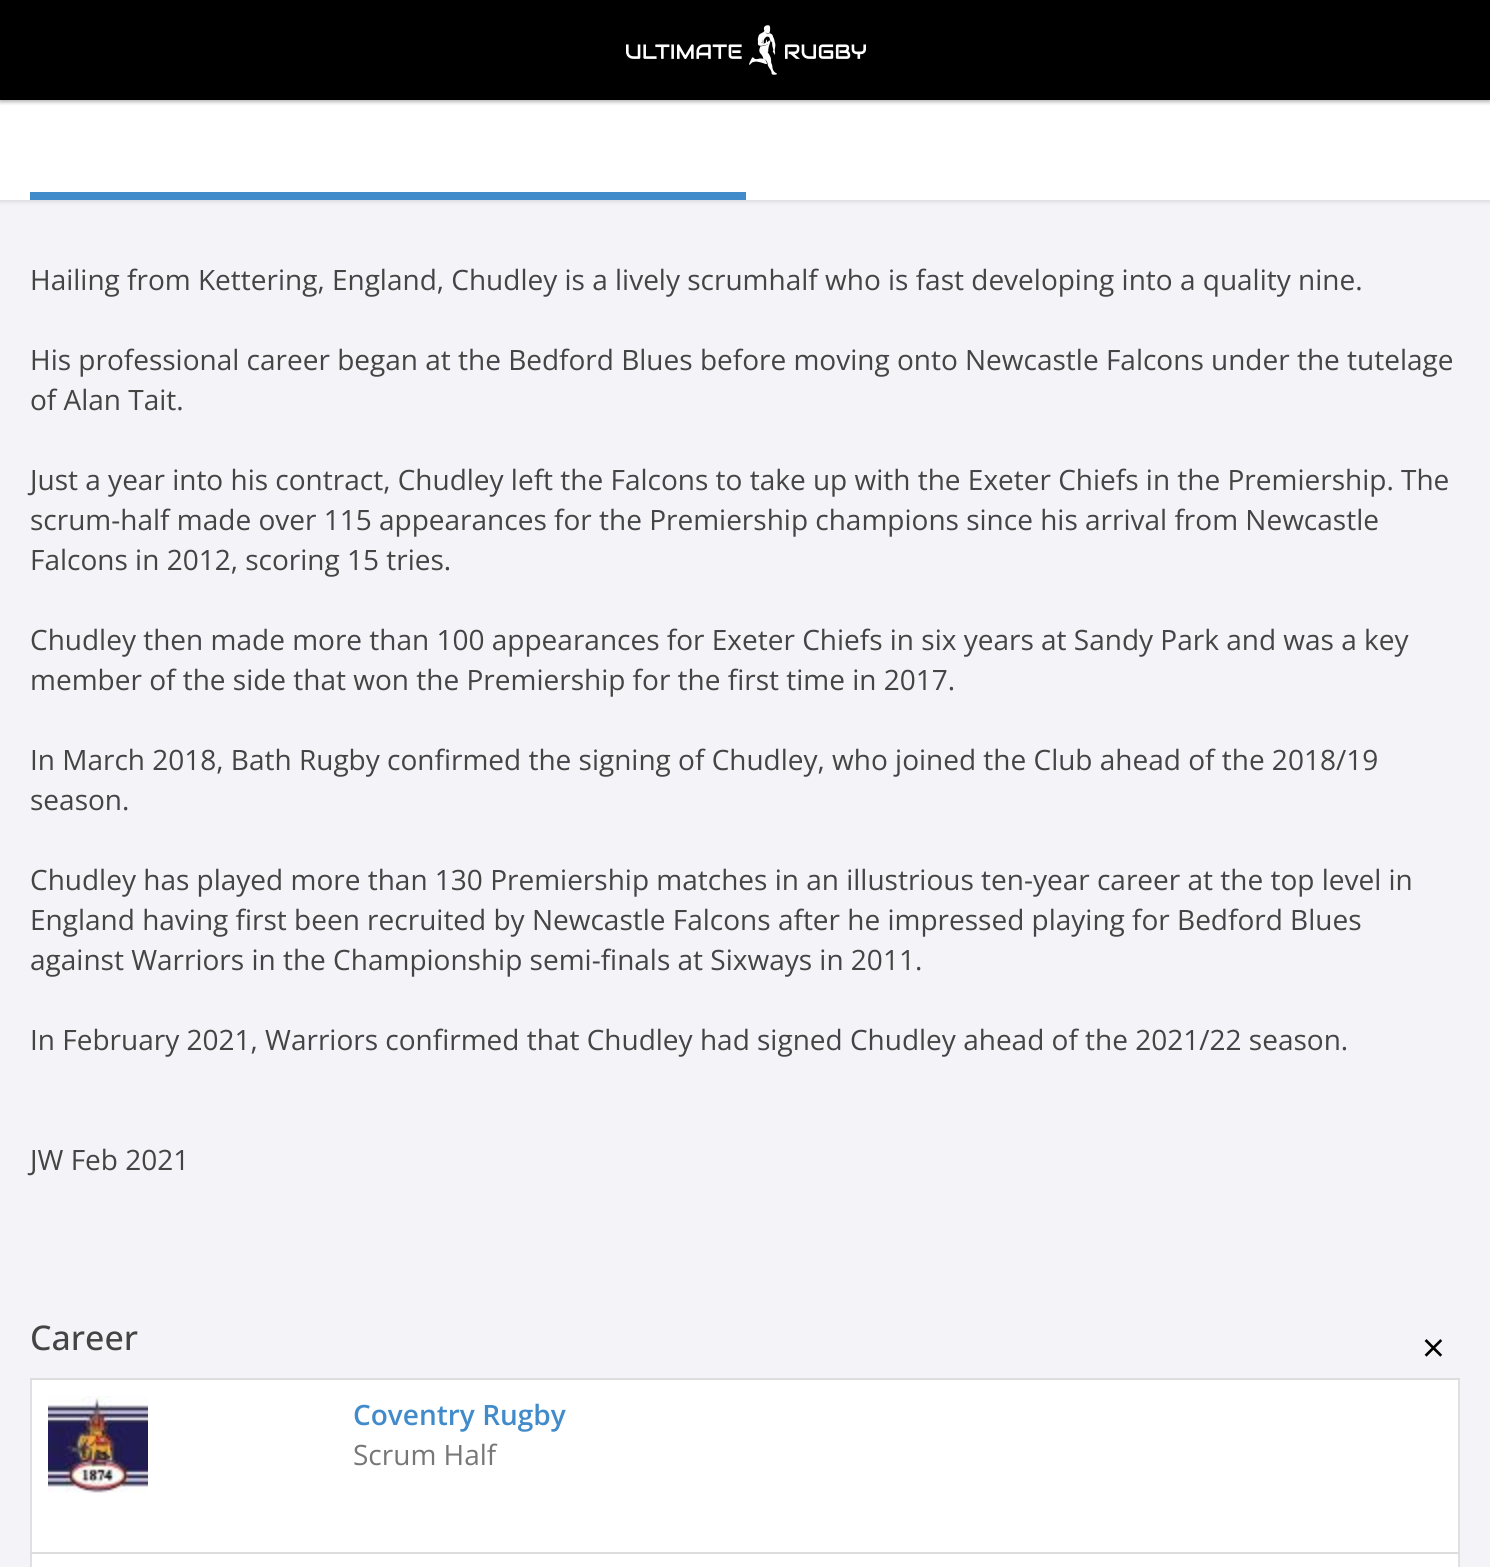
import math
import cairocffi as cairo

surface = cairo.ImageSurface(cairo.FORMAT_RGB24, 1490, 1567)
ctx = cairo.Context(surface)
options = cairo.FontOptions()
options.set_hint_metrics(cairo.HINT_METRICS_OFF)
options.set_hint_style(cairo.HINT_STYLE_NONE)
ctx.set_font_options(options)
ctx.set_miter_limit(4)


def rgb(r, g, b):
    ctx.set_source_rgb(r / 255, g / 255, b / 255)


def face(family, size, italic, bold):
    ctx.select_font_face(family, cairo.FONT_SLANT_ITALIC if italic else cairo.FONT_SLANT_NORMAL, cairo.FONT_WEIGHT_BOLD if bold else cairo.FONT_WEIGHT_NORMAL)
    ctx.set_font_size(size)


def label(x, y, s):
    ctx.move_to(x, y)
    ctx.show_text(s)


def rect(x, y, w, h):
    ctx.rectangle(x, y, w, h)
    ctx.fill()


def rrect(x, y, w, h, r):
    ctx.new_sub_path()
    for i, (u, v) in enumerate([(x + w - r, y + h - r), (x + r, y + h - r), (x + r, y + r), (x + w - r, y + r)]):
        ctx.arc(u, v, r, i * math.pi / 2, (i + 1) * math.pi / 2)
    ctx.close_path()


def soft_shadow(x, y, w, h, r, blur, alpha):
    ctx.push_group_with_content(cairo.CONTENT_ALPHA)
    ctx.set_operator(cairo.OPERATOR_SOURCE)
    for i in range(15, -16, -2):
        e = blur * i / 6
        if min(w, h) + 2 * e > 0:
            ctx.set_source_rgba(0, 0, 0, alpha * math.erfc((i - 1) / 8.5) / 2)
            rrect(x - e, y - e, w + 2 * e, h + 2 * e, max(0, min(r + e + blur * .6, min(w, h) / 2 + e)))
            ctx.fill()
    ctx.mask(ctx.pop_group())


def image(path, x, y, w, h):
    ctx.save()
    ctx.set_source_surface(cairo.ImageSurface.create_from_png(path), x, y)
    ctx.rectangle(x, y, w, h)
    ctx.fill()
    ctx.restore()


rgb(243, 243, 248)
ctx.paint()
rgb(0, 0, 0)
soft_shadow(0, 102, 1490, 100, 0, 2, 0.1)
rgb(255, 255, 255)
rect(0, 100, 1490, 100)
rgb(0, 0, 0)
soft_shadow(0, 2, 1490, 100, 0, 2, 0.3)
rgb(0, 0, 0)
rect(0, 0, 1490, 100)
image('image0.png', 626, 25, 240, 50)
rgb(66, 139, 202)
rect(30, 192, 716, 8)
face('Open Sans', 28, 0, 0)
rgb(68, 68, 68)
label(30, 290, 'Hailing from Kettering, England, Chudley is a lively scrumhalf who is fast developing into a quality nine.')
label(30, 370, 'His professional career began at the Bedford Blues before moving onto Newcastle Falcons under the tutelage')
label(30, 410, 'of Alan Tait.')
label(30, 490, 'Just a year into his contract, Chudley left the Falcons to take up with the Exeter Chiefs in the Premiership. The')
label(30, 530, 'scrum-half made over 115 appearances for the Premiership champions since his arrival from Newcastle')
label(30, 570, 'Falcons in 2012, scoring 15 tries.')
label(30, 650, 'Chudley then made more than 100 appearances for Exeter Chiefs in six years at Sandy Park and was a key')
label(30, 690, 'member of the side that won the Premiership for the first time in 2017.')
label(30, 770, 'In March 2018, Bath Rugby confirmed the signing of Chudley, who joined the Club ahead of the 2018/19')
label(30, 810, 'season.')
label(30, 890, 'Chudley has played more than 130 Premiership matches in an illustrious ten-year career at the top level in')
label(30, 930, 'England having first been recruited by Newcastle Falcons after he impressed playing for Bedford Blues')
label(30, 970, 'against Warriors in the Championship semi-finals at Sixways in 2011.')
label(30, 1050, 'In February 2021, Warriors confirmed that Chudley had signed Chudley ahead of the 2021/22 season.')
label(30, 1170, 'JW Feb 2021')
face('Open Sans Medium', 34, 0, 0)
label(30, 1350, 'Career')
rgb(255, 255, 255)
rect(32, 1380, 1426, 187)
rgb(223, 224, 228)
rect(1458, 1378, 2, 189)
rect(30, 1378, 2, 189)
rgb(221, 221, 221)
rect(30, 1378, 1430, 2)
image('image1.png', 48, 1396, 100, 97)
face('Open Sans SemiBold', 28, 0, 0)
rgb(66, 139, 202)
label(353, 1425, 'Coventry Rugby')
face('Open Sans', 28, 0, 0)
rgb(119, 119, 119)
label(353, 1465, 'Scrum Half')
rgb(221, 221, 221)
rect(30, 1552, 1430, 2)
face('Open Sans', 40, 0, 0)
rgb(0, 0, 0)
label(1422, 1362, '×')
surface.write_to_png('render.png')
